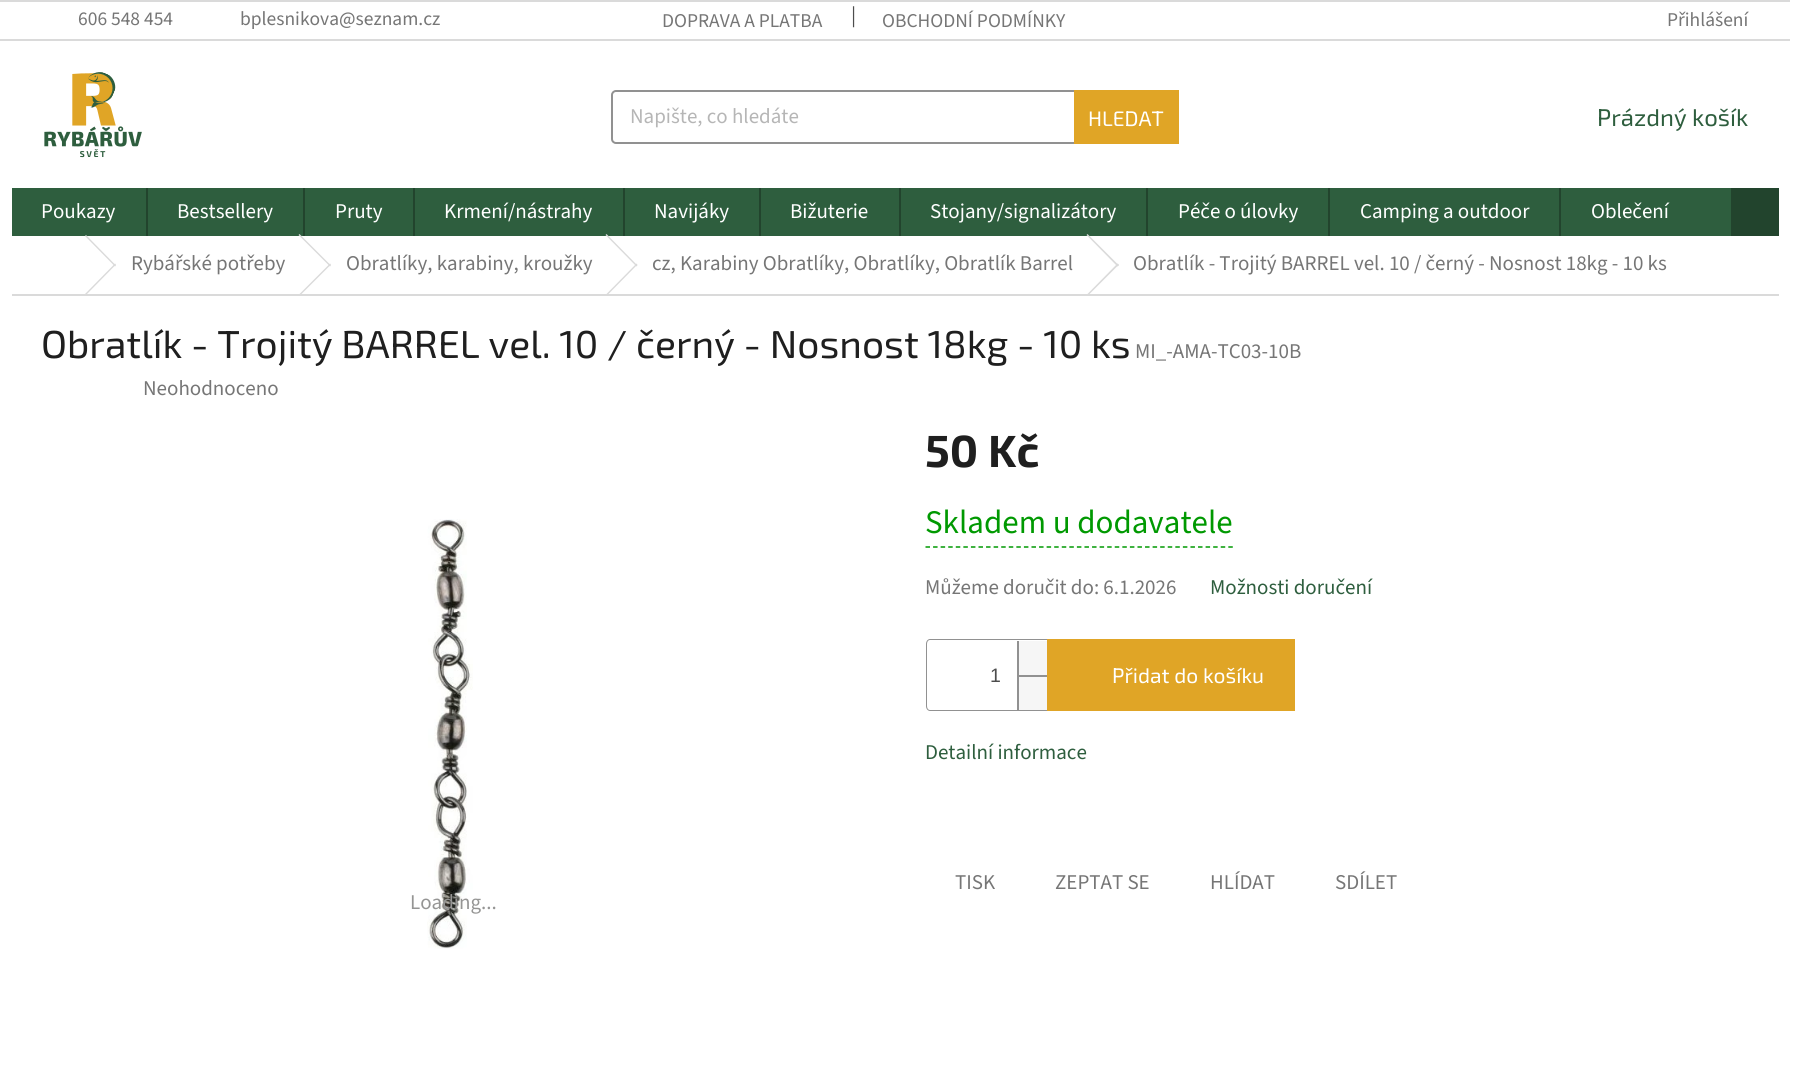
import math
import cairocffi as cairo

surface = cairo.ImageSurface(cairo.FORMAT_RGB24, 1812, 1090)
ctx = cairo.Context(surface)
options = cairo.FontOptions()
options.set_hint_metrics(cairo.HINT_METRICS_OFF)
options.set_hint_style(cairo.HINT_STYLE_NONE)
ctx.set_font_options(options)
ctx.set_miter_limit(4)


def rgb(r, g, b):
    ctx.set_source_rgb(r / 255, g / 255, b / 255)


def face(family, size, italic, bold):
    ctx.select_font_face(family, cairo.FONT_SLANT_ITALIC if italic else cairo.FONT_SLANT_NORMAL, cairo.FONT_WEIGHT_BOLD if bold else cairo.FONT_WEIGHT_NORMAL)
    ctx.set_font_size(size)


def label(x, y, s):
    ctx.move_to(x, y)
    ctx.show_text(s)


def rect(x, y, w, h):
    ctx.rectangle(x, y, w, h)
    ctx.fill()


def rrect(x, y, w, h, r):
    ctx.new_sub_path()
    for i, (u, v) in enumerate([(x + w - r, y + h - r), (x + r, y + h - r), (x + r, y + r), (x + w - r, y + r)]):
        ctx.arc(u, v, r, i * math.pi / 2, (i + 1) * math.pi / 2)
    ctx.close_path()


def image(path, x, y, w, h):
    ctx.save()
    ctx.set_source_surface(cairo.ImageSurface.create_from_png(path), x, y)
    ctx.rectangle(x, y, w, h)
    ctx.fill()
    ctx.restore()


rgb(255, 255, 255)
ctx.paint()
rgb(218, 218, 218)
rect(0, 0, 1790, 2)
rect(0, 39, 1790, 2)
face('Source Sans 3', 19.5, 0, 0)
rgb(118, 118, 118)
label(78, 25, '606 548 454')
label(240, 25, 'bplesnikova@seznam.cz')
label(662, 27, 'DOPRAVA A PLATBA')
face('Source Sans 3', 21, 0, 0)
rgb(77, 77, 77)
label(851, 22, '|')
face('Source Sans 3', 19.5, 0, 0)
rgb(118, 118, 118)
label(882, 27, 'OBCHODNÍ PODMÍNKY')
label(1667, 26, 'Přihlášení')
image('image0.png', 44, 72, 98, 86)
rrect(612, 91, 566, 52, 4)
rgb(145, 145, 145)
ctx.stroke()
face('Source Sans 3', 21, 0, 0)
rgb(182, 182, 182)
label(630, 123, 'Napište, co hledáte')
rgb(224, 165, 38)
rect(1074, 90, 105, 54)
face('Exo 2', 21, 0, 0)
rgb(255, 255, 255)
label(1088, 126, 'HLEDAT')
face('Exo 2', 24, 0, 0)
rgb(46, 94, 62)
label(1597, 126, 'Prázdný košík')
rect(12, 188, 1719, 48)
face('Source Sans 3', 21, 0, 0)
rgb(255, 255, 255)
label(41, 218, 'Poukazy')
rgb(34, 68, 45)
rect(146, 188, 2, 48)
rgb(255, 255, 255)
label(177, 218, 'Bestsellery')
rgb(34, 68, 45)
rect(303, 188, 2, 48)
rgb(255, 255, 255)
label(335, 218, 'Pruty')
rgb(34, 68, 45)
rect(413, 188, 2, 48)
rgb(255, 255, 255)
label(444, 218, 'Krmení/nástrahy')
rgb(34, 68, 45)
rect(623, 188, 2, 48)
rgb(255, 255, 255)
label(654, 218, 'Navijáky')
rgb(34, 68, 45)
rect(759, 188, 2, 48)
rgb(255, 255, 255)
label(790, 218, 'Bižuterie')
rgb(34, 68, 45)
rect(899, 188, 2, 48)
rgb(255, 255, 255)
label(930, 218, 'Stojany/signalizátory')
rgb(34, 68, 45)
rect(1146, 188, 2, 48)
rgb(255, 255, 255)
label(1178, 218, 'Péče o úlovky')
rgb(34, 68, 45)
rect(1328, 188, 2, 48)
rgb(255, 255, 255)
label(1360, 218, 'Camping a outdoor')
rgb(34, 68, 45)
rect(1559, 188, 2, 48)
rgb(255, 255, 255)
label(1591, 218, 'Oblečení')
rgb(34, 68, 45)
rect(1731, 188, 48, 48)
rgb(218, 218, 218)
rect(12, 294, 1767, 2)
ctx.new_path()
ctx.move_to(85, 236)
ctx.line_to(86, 235)
ctx.line_to(116, 265.5)
ctx.line_to(115, 266.5)
ctx.close_path()
ctx.fill()
ctx.new_path()
ctx.move_to(115, 263.5)
ctx.line_to(116, 264.5)
ctx.line_to(86, 295)
ctx.line_to(85, 294)
ctx.close_path()
ctx.fill()
rgb(118, 118, 118)
label(131, 270, 'Rybářské potřeby')
rgb(218, 218, 218)
ctx.new_path()
ctx.move_to(298.5, 235)
ctx.line_to(299.5, 234)
ctx.line_to(331, 265.5)
ctx.line_to(330, 266.5)
ctx.close_path()
ctx.fill()
ctx.new_path()
ctx.move_to(330, 263.5)
ctx.line_to(331, 264.5)
ctx.line_to(299.5, 296)
ctx.line_to(298.5, 295)
ctx.close_path()
ctx.fill()
rgb(118, 118, 118)
label(346, 270, 'Obratlíky, karabiny, kroužky')
rgb(218, 218, 218)
ctx.new_path()
ctx.move_to(605.5, 235)
ctx.line_to(606.5, 234)
ctx.line_to(637.5, 265.5)
ctx.line_to(636.5, 266.5)
ctx.close_path()
ctx.fill()
ctx.new_path()
ctx.move_to(636.5, 263.5)
ctx.line_to(637.5, 264.5)
ctx.line_to(606.5, 296)
ctx.line_to(605.5, 295)
ctx.close_path()
ctx.fill()
rgb(118, 118, 118)
label(652, 270, 'cz, Karabiny Obratlíky, Obratlíky, Obratlík Barrel')
rgb(218, 218, 218)
ctx.new_path()
ctx.move_to(1086.5, 235)
ctx.line_to(1087.5, 234)
ctx.line_to(1119, 265.5)
ctx.line_to(1117.5, 266.5)
ctx.close_path()
ctx.fill()
ctx.new_path()
ctx.move_to(1117.5, 263.5)
ctx.line_to(1119, 264.5)
ctx.line_to(1087.5, 296)
ctx.line_to(1086.5, 295)
ctx.close_path()
ctx.fill()
rgb(118, 118, 118)
label(1133, 270, 'Obratlík - Trojitý BARREL vel. 10 / černý - Nosnost 18kg - 10 ks')
face('Exo 2', 39, 0, 0)
rgb(31, 31, 31)
label(41, 358, 'Obratlík - Trojitý BARREL vel. 10 / černý - Nosnost 18kg - 10 ks')
face('Source Sans 3', 21, 0, 0)
rgb(118, 118, 118)
label(1135, 358, 'MI_-AMA-TC03-10B')
label(143, 395, 'Neohodnoceno')
face('Exo 2', 45, 0, 1)
rgb(31, 31, 31)
label(925, 467, '50 Kč')
face('Source Sans 3', 33, 0, 0)
rgb(0, 153, 1)
label(925, 533, 'Skladem u dodavatele')
ctx.new_path()
ctx.move_to(925.5, 547)
ctx.line_to(1233, 547)
ctx.set_line_width(1.5)
ctx.set_dash([4.5, 3.07])
ctx.stroke()
face('Source Sans 3', 21, 0, 0)
rgb(118, 118, 118)
label(925, 594, 'Můžeme doručit do: 6.1.2026')
rgb(46, 94, 62)
label(1210, 594, 'Možnosti doručení')
rgb(145, 145, 145)
ctx.set_fill_rule(cairo.FILL_RULE_EVEN_ODD)
ctx.new_path()
ctx.move_to(930, 639)
ctx.line_to(1047, 639)
ctx.line_to(1047, 711)
ctx.line_to(930, 711)
ctx.curve_to(928, 711, 926, 709, 926, 706)
ctx.line_to(926, 644)
ctx.curve_to(926, 641, 928, 639, 930, 639)
ctx.close_path()
ctx.move_to(930, 640)
ctx.line_to(1047, 640)
ctx.line_to(1047, 710)
ctx.line_to(930, 710)
ctx.curve_to(928, 710, 927, 708, 927, 706)
ctx.line_to(927, 644)
ctx.curve_to(927, 642, 928, 640, 930, 640)
ctx.close_path()
ctx.fill()
face('Liberation Sans', 19.5, 0, 0)
rgb(77, 77, 77)
label(990, 682, '1')
rgb(246, 246, 246)
rect(1019, 641, 28, 34)
rgb(145, 145, 145)
rect(1017, 641, 2, 34)
rgb(246, 246, 246)
rect(1019, 677, 28, 33)
rgb(145, 145, 145)
rect(1017, 675, 30, 2)
rect(1017, 675, 2, 35)
rgb(224, 165, 38)
rect(1047, 639, 248, 72)
face('Exo 2', 21, 0, 0)
rgb(255, 255, 255)
label(1112, 683, 'Přidat do košíku')
face('Source Sans 3', 21, 0, 0)
rgb(46, 94, 62)
label(925, 759, 'Detailní informace')
rgb(118, 118, 118)
label(955, 889, 'TISK')
label(1055, 889, 'ZEPTAT SE')
label(1210, 889, 'HLÍDAT')
label(1335, 889, 'SDÍLET')
image('image1.png', 427, 519, 46, 430)
rgb(149, 149, 148)
label(410, 909, 'Loading...')
surface.write_to_png('render.png')
